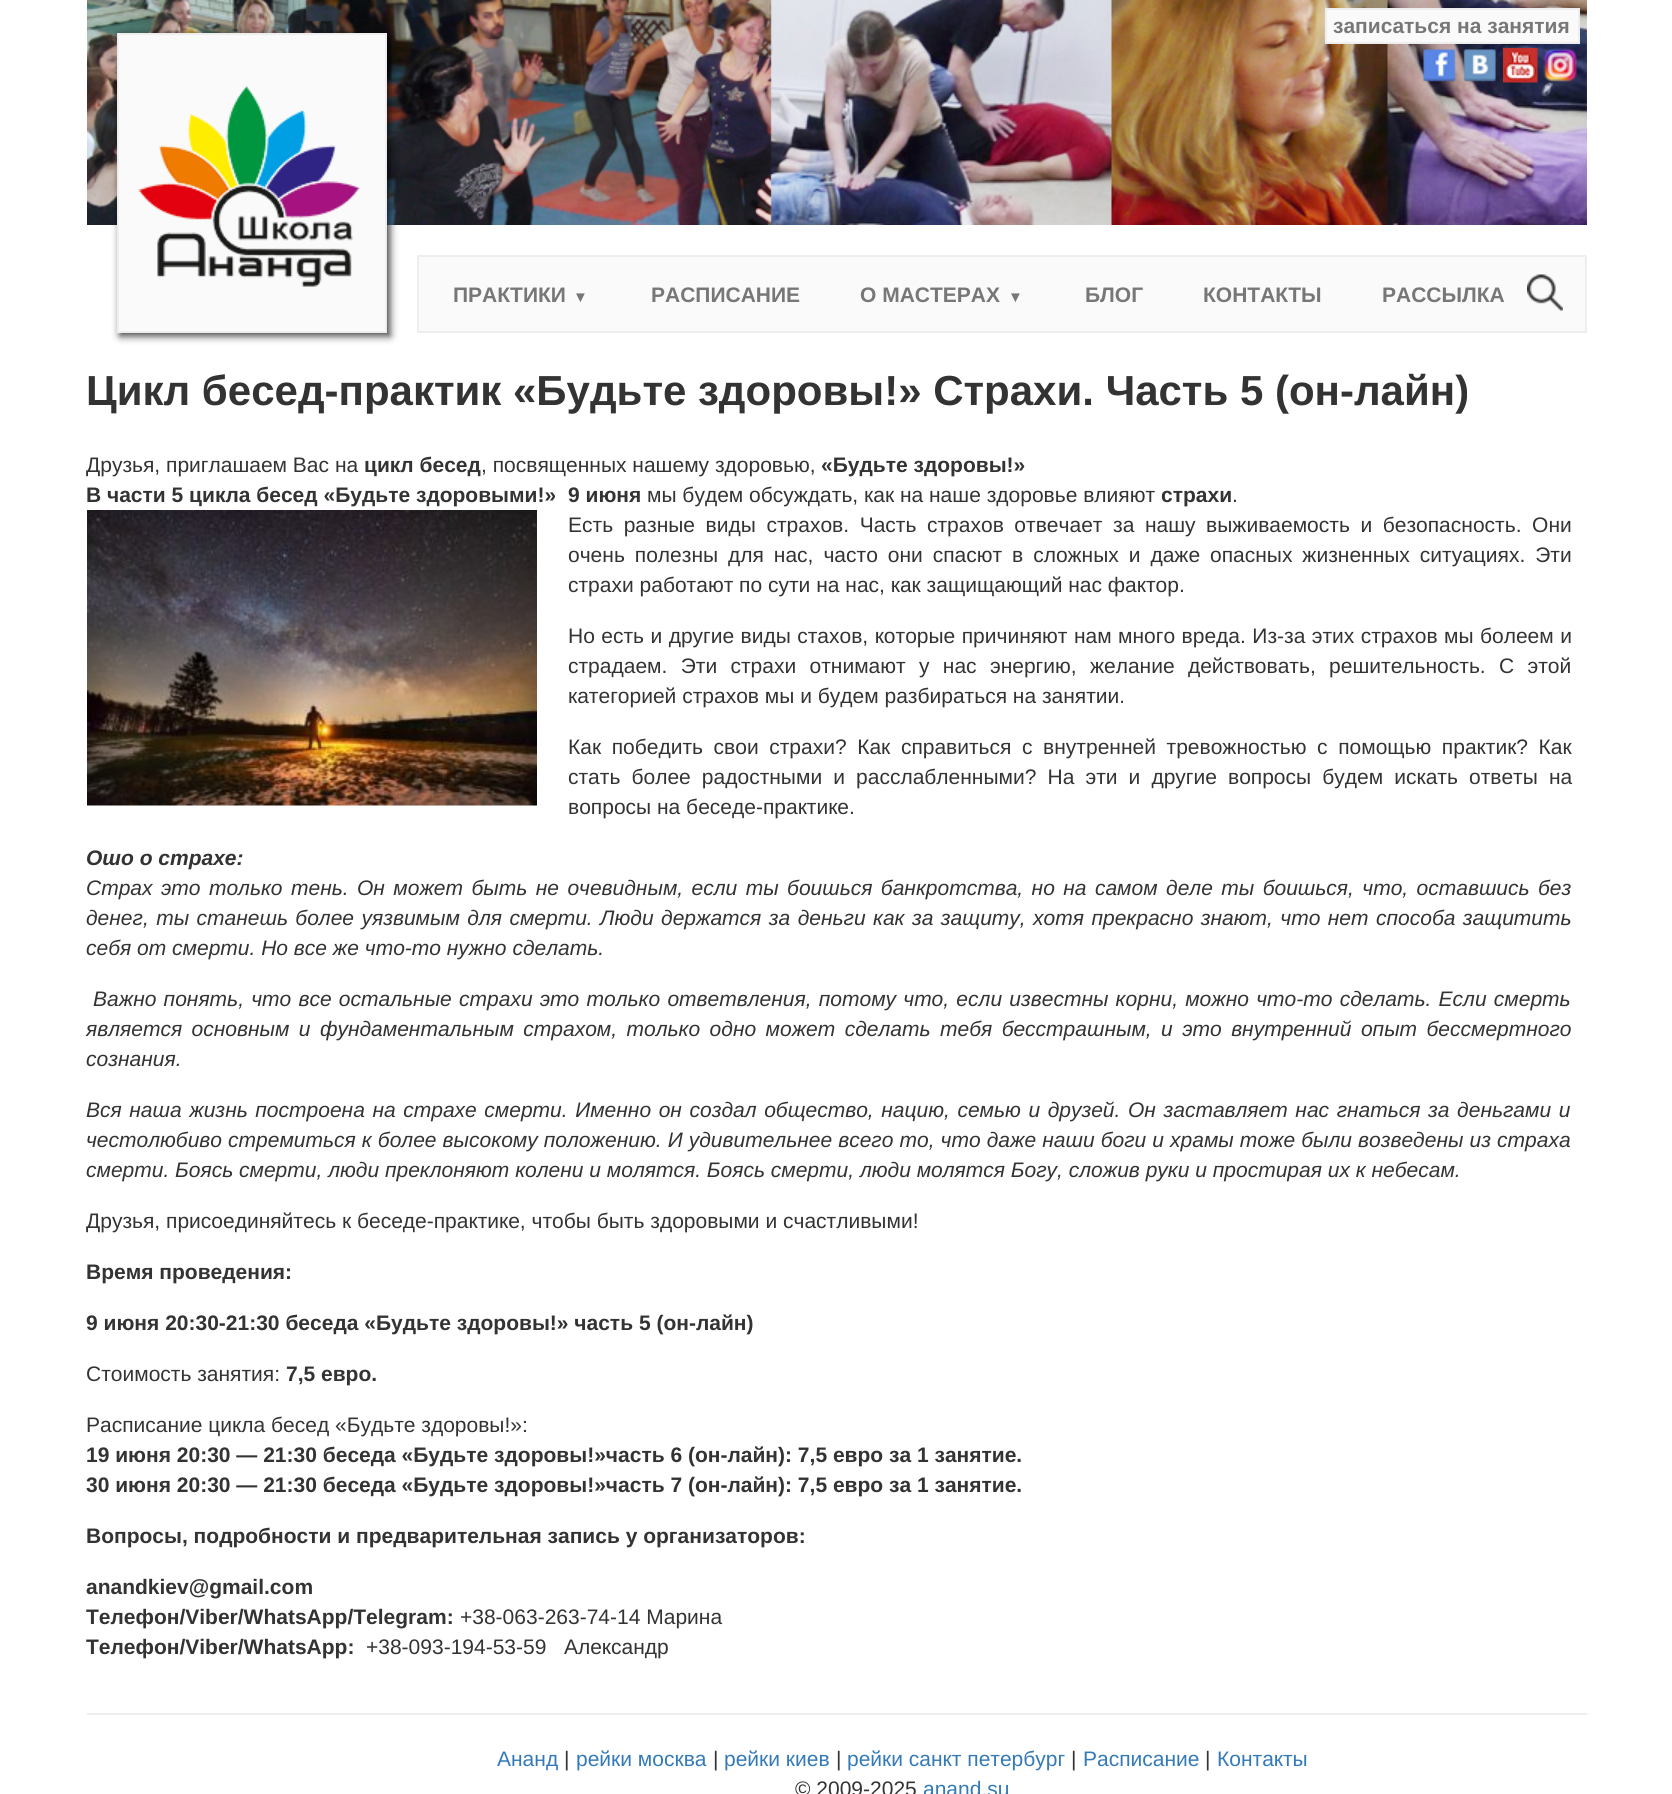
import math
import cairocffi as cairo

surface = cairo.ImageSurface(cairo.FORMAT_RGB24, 1672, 1794)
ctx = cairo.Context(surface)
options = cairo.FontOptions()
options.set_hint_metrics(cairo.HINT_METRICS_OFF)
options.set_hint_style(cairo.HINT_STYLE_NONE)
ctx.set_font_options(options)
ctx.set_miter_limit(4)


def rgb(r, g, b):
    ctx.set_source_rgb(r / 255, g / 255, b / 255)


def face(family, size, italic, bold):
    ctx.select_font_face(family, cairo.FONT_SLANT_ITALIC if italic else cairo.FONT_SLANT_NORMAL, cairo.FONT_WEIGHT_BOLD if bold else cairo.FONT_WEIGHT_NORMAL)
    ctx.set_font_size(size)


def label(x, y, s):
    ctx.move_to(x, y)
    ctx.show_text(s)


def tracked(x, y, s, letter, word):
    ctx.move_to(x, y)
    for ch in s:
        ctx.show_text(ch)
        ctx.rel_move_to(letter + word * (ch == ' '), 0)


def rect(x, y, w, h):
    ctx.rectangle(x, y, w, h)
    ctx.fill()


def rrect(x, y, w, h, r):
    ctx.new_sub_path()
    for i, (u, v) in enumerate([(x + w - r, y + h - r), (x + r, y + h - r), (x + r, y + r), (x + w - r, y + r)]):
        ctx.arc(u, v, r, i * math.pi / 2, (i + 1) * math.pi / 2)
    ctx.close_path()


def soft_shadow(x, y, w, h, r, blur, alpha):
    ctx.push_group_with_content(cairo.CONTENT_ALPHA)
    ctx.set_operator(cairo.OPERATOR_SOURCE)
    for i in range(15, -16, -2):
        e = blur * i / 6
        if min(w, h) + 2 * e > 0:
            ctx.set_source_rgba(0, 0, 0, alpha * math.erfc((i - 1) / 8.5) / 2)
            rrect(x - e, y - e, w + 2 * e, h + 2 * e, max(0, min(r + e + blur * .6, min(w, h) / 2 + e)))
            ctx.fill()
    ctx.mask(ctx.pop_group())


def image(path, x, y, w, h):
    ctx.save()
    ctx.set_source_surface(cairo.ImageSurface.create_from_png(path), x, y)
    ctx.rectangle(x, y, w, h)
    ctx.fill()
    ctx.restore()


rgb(255, 255, 255)
ctx.paint()
image('image0.png', 87, 0, 1500, 225)
rgb(0, 0, 0)
soft_shadow(120, 36, 270, 300, 0, 4, 0.75)
rgb(250, 250, 250)
ctx.rectangle(118, 34, 268, 298)
ctx.fill_preserve()
rgb(238, 238, 238)
ctx.stroke()
image('image1.png', 138, 85, 223, 202)
rgb(250, 250, 250)
ctx.rectangle(1326, 9, 253, 34)
ctx.fill_preserve()
rgb(238, 238, 238)
ctx.stroke()
face('Liberation Sans', 21, 0, 1)
rgb(119, 119, 119)
label(1333, 33, 'записаться на занятия')
image('image2.png', 1423, 49, 33, 33)
image('image3.png', 1463, 49, 33, 33)
image('image4.png', 1503, 48, 35, 35)
image('image5.png', 1543, 48, 34, 34)
rgb(250, 250, 250)
ctx.rectangle(418, 256, 1168, 76)
ctx.fill_preserve()
rgb(238, 238, 238)
ctx.stroke()
rgb(119, 119, 119)
label(453, 302, 'ПРАКТИКИ')
face('Liberation Sans', 15, 0, 1)
label(573, 302, '▼')
face('Liberation Sans', 21, 0, 1)
label(651, 302, 'РАСПИСАНИЕ')
label(860, 302, 'О МАСТЕРАХ')
face('Liberation Sans', 15, 0, 1)
label(1008, 302, '▼')
face('Liberation Sans', 21, 0, 1)
label(1085, 302, 'БЛОГ')
label(1203, 302, 'КОНТАКТЫ')
label(1382, 302, 'РАССЫЛКА')
image('image6.png', 1527, 274, 36, 37)
face('Liberation Sans', 42, 0, 1)
rgb(51, 51, 51)
label(86, 405, 'Цикл бесед-практик «Будьте здоровы!» Страхи. Часть 5 (он-лайн)')
face('Liberation Sans', 21, 0, 0)
label(86, 472, 'Друзья, приглашаем Вас на')
face('Liberation Sans', 21, 0, 1)
label(364, 472, 'цикл бесед')
face('Liberation Sans', 21, 0, 0)
label(481, 472, ', посвященных нашему здоровью,')
face('Liberation Sans', 21, 0, 1)
label(821, 472, '«Будьте здоровы!»')
label(86, 502, 'В части 5 цикла бесед «Будьте здоровыми!»')
label(568, 502, '9 июня')
face('Liberation Sans', 21, 0, 0)
label(647, 502, 'мы будем обсуждать, как на наше здоровье влияют')
face('Liberation Sans', 21, 0, 1)
label(1161, 502, 'страхи')
face('Liberation Sans', 21, 0, 0)
label(1232, 502, '.')
image('image7.png', 87, 510, 450, 296)
tracked(568, 532, 'Есть разные виды страхов. Часть страхов отвечает за нашу выживаемость и безопасность. Они', 0, 4.75)
tracked(568, 562, 'очень полезны для нас, часто они спасют в сложных и даже опасных жизненных ситуациях. Эти', 0, 4.1)
label(568, 592, 'страхи работают по сути на нас, как защищающий нас фактор.')
tracked(568, 643, 'Но есть и другие виды стахов, которые причиняют нам много вреда. Из-за этих страхов мы болеем и', 0, 0.6)
tracked(568, 673, 'страдаем. Эти страхи отнимают у нас энергию, желание действовать, решительность. С этой', 0, 7.5)
label(568, 703, 'категорией страхов мы и будем разбираться на занятии.')
tracked(568, 754, 'Как победить свои страхи? Как справиться с внутренней тревожностью с помощью практик? Как', 0, 4.75)
tracked(568, 784, 'стать более радостными и расслабленными? На эти и другие вопросы будем искать ответы на', 0, 5.25)
label(568, 814, 'вопросы на беседе-практике.')
face('Liberation Sans', 21, 1, 1)
label(86, 865, 'Ошо о страхе:')
face('Liberation Sans', 21, 1, 0)
tracked(86, 895, 'Страх это только тень. Он может быть не очевидным, если ты боишься банкротства, но на самом деле ты боишься, что, оставшись без', 0, 2.6)
tracked(86, 925, 'денег, ты станешь более уязвимым для смерти. Люди держатся за деньги как за защиту, хотя прекрасно знают, что нет способа защитить', 0, 1.6)
label(86, 955, 'себя от смерти. Но все же что-то нужно сделать.')
tracked(93, 1006, 'Важно понять, что все остальные страхи это только ответвления, потому что, если известны корни, можно что-то сделать. Если смерть', 0, 1.4)
tracked(86, 1036, 'является основным и фундаментальным страхом, только одно может сделать тебя бесстрашным, и это внутренний опыт бессмертного', 0, 3.6)
label(86, 1066, 'сознания.')
tracked(86, 1117, 'Вся наша жизнь построена на страхе смерти. Именно он создал общество, нацию, семью и друзей. Он заставляет нас гнаться за деньгами и', 0, 1.75)
tracked(86, 1147, 'честолюбиво стремиться к более высокому положению. И удивительнее всего то, что даже наши боги и храмы тоже были возведены из страха', 0, 0.25)
label(86, 1177, 'смерти. Боясь смерти, люди преклоняют колени и молятся. Боясь смерти, люди молятся Богу, сложив руки и простирая их к небесам.')
face('Liberation Sans', 21, 0, 0)
label(86, 1228, 'Друзья, присоединяйтесь к беседе-практике, чтобы быть здоровыми и счастливыми!')
face('Liberation Sans', 21, 0, 1)
label(86, 1279, 'Время проведения:')
label(86, 1330, '9 июня 20:30-21:30 беседа «Будьте здоровы!» часть 5 (он-лайн)')
face('Liberation Sans', 21, 0, 0)
label(86, 1381, 'Стоимость занятия:')
face('Liberation Sans', 21, 0, 1)
label(286, 1381, '7,5 евро.')
face('Liberation Sans', 21, 0, 0)
label(86, 1432, 'Расписание цикла бесед «Будьте здоровы!»:')
face('Liberation Sans', 21, 0, 1)
label(86, 1462, '19 июня 20:30 — 21:30 беседа «Будьте здоровы!»часть 6 (он-лайн): 7,5 евро за 1 занятие.')
label(86, 1492, '30 июня 20:30 — 21:30 беседа «Будьте здоровы!»часть 7 (он-лайн): 7,5 евро за 1 занятие.')
label(86, 1543, 'Вопросы, подробности и предварительная запись у организаторов:')
label(86, 1594, 'anandkiev@gmail.com')
label(86, 1624, 'Телефон/Viber/WhatsApp/Telegram:')
face('Liberation Sans', 21, 0, 0)
label(460, 1624, '+38-063-263-74-14 Марина')
face('Liberation Sans', 21, 0, 1)
label(86, 1654, 'Телефон/Viber/WhatsApp:')
face('Liberation Sans', 21, 0, 0)
label(366, 1654, '+38-093-194-53-59   Александр')
rgb(238, 238, 238)
rect(87, 1713, 1500, 2)
rgb(51, 122, 183)
label(497, 1766, 'Ананд')
rgb(51, 51, 51)
label(564, 1766, '|')
rgb(51, 122, 183)
label(576, 1766, 'рейки москва')
rgb(51, 51, 51)
label(713, 1766, '|')
rgb(51, 122, 183)
label(724, 1766, 'рейки киев')
rgb(51, 51, 51)
label(836, 1766, '|')
rgb(51, 122, 183)
label(847, 1766, 'рейки санкт петербург')
rgb(51, 51, 51)
label(1071, 1766, '|')
rgb(51, 122, 183)
label(1083, 1766, 'Расписание')
rgb(51, 51, 51)
label(1205, 1766, '|')
rgb(51, 122, 183)
label(1217, 1766, 'Контакты')
rgb(51, 51, 51)
label(795, 1796, '© 2009-2025')
rgb(51, 122, 183)
label(923, 1796, 'anand.su')
surface.write_to_png('render.png')
